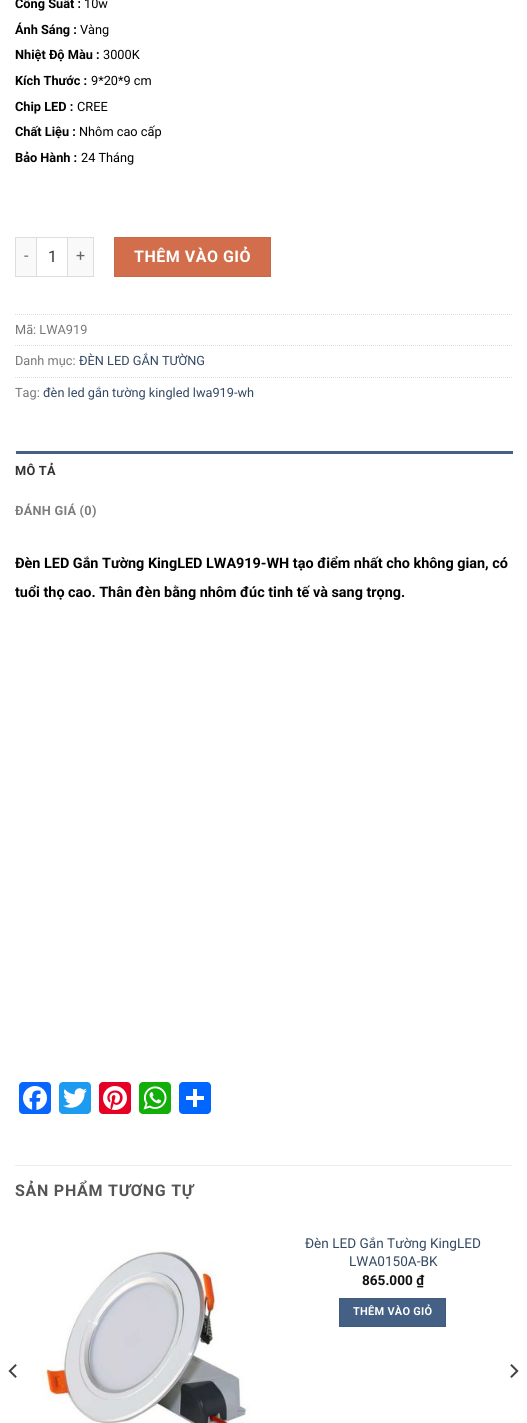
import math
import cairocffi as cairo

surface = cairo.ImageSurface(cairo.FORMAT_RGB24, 527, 1423)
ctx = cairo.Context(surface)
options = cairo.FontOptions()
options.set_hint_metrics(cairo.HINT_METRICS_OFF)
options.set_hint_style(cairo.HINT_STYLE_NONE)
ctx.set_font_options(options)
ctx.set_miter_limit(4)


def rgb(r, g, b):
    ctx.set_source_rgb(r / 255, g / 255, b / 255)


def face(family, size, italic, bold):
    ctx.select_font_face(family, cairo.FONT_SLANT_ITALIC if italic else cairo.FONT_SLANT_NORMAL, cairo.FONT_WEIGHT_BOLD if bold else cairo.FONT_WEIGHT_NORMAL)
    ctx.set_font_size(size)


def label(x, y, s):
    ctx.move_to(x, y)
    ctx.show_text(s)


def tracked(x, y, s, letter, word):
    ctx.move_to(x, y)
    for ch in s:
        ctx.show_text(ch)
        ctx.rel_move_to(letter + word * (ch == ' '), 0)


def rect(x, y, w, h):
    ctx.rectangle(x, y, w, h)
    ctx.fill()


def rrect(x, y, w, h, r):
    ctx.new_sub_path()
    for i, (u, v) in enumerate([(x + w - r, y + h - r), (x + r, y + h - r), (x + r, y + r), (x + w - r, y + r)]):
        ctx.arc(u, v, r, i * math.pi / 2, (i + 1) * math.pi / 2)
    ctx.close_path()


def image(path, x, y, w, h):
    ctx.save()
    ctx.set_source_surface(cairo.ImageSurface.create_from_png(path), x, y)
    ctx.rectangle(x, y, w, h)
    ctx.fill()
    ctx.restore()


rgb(255, 255, 255)
ctx.paint()
face('Roboto', 12.75, 0, 1)
rgb(0, 0, 0)
label(15, 8, 'Công Suất :')
face('Roboto', 12.75, 0, 0)
label(84, 8, '10w')
face('Roboto', 12.75, 0, 1)
label(15, 34, 'Ánh Sáng :')
face('Roboto', 12.75, 0, 0)
label(80, 34, 'Vàng')
face('Roboto', 12.75, 0, 1)
label(15, 59, 'Nhiệt Độ Màu :')
face('Roboto', 12.75, 0, 0)
label(103, 59, '3000K')
face('Roboto', 12.75, 0, 1)
label(15, 85, 'Kích Thước :')
face('Roboto', 12.75, 0, 0)
label(91, 85, '9*20*9 cm')
face('Roboto', 12.75, 0, 1)
label(15, 111, 'Chip LED :')
face('Roboto', 12.75, 0, 0)
label(77, 111, 'CREE')
face('Roboto', 12.75, 0, 1)
label(15, 136, 'Chất Liệu :')
face('Roboto', 12.75, 0, 0)
label(79, 136, 'Nhôm cao cấp')
face('Roboto', 12.75, 0, 1)
label(15, 162, 'Bảo Hành :')
face('Roboto', 12.75, 0, 0)
label(81, 162, '24 Tháng')
rgb(249, 249, 249)
rect(16, 238, 20, 38)
rgb(221, 221, 221)
rect(15, 237, 21, 1)
rect(15, 276, 21, 1)
rect(15, 237, 1, 40)
face('Roboto', 16, 0, 0)
rgb(102, 102, 102)
label(24, 261, '-')
ctx.rectangle(36.5, 237.5, 31, 39)
rgb(221, 221, 221)
ctx.set_line_width(1)
ctx.stroke()
rgb(51, 51, 51)
label(48, 262, '1')
rgb(249, 249, 249)
rect(68, 238, 25, 38)
rgb(221, 221, 221)
rect(68, 237, 26, 1)
rect(93, 237, 1, 40)
rect(68, 276, 26, 1)
rgb(102, 102, 102)
label(76, 261, '+')
rgb(210, 110, 75)
ctx.rectangle(114.5, 237.5, 156, 39)
ctx.fill_preserve()
rgb(200, 105, 71)
ctx.stroke()
face('Roboto', 16, 0, 1)
rgb(255, 255, 255)
tracked(134, 262, 'THÊM VÀO GIỎ', 0.5, 0)
ctx.new_path()
ctx.move_to(15, 314.5)
ctx.line_to(512, 314.5)
rgb(221, 221, 221)
ctx.set_dash([1, 1])
ctx.stroke()
face('Roboto', 12.75, 0, 0)
rgb(119, 119, 119)
label(15, 334, 'Mã: LWA919')
ctx.new_path()
ctx.move_to(15, 345.5)
ctx.line_to(512, 345.5)
rgb(221, 221, 221)
ctx.stroke()
rgb(119, 119, 119)
label(15, 365, 'Danh mục:')
rgb(51, 72, 98)
label(79, 365, 'ĐÈN LED GẮN TƯỜNG')
ctx.new_path()
ctx.move_to(15, 377.5)
ctx.line_to(512, 377.5)
rgb(221, 221, 221)
ctx.stroke()
rgb(119, 119, 119)
label(15, 397, 'Tag:')
rgb(51, 72, 98)
label(43, 397, 'đèn led gắn tường kingled lwa919-wh')
rgb(236, 236, 236)
rect(15, 451, 1, 1)
rgb(68, 96, 132)
rect(16, 451, 497, 3)
face('Roboto', 12.75, 0, 1)
rgb(51, 51, 51)
tracked(15, 475, 'MÔ TẢ', 0.25, 0)
rgb(125, 125, 125)
tracked(15, 515, 'ĐÁNH GIÁ (0)', 0.25, 0)
face('Roboto', 14.4, 0, 1)
rgb(0, 0, 0)
label(15, 568, 'Đèn LED Gắn Tường KingLED LWA919-WH tạo điểm nhất cho không gian, có')
label(15, 597, 'tuổi thọ cao. Thân đèn bằng nhôm đúc tinh tế và sang trọng.')
rgb(8, 102, 255)
rrect(19, 1082, 32, 32, 4)
ctx.fill()
image('image0.png', 23, 1086, 24, 24)
rgb(29, 155, 240)
rrect(59, 1082, 32, 32, 4)
ctx.fill()
image('image1.png', 63, 1088, 24, 20)
rgb(230, 0, 35)
rrect(99, 1082, 32, 32, 4)
ctx.fill()
image('image2.png', 103, 1086, 24, 24)
rgb(18, 175, 10)
rrect(139, 1082, 32, 32, 4)
ctx.fill()
image('image3.png', 143, 1086, 24, 24)
rgb(1, 102, 255)
rrect(179, 1082, 32, 32, 4)
ctx.fill()
rgb(255, 255, 255)
rect(193, 1089, 4, 18)
rect(186, 1096, 18, 4)
rgb(236, 236, 236)
rect(15, 1165, 497, 1)
face('Roboto', 16, 0, 1)
rgb(85, 85, 85)
tracked(15, 1196, 'SẢN PHẨM TƯƠNG TỰ', 0.75, 0)
image('image4.png', 40, 1249, 211, 174)
face('Roboto', 13.6, 0, 0)
rgb(51, 72, 98)
label(305, 1248, 'Đèn LED Gắn Tường KingLED')
label(349, 1266, 'LWA0150A-BK')
face('Roboto', 13.6, 0, 1)
rgb(17, 17, 17)
label(362, 1285, '865.000 ₫')
rgb(68, 96, 132)
ctx.rectangle(339.5, 1298.5, 106, 28)
ctx.fill_preserve()
rgb(65, 91, 125)
ctx.set_dash([])
ctx.stroke()
face('Roboto', 11, 0, 1)
rgb(255, 255, 255)
tracked(353, 1315, 'THÊM VÀO GIỎ', 0.25, 0)
image('image5.png', 8, 1364, 9, 14)
image('image6.png', 510, 1364, 9, 14)
surface.write_to_png('render.png')
